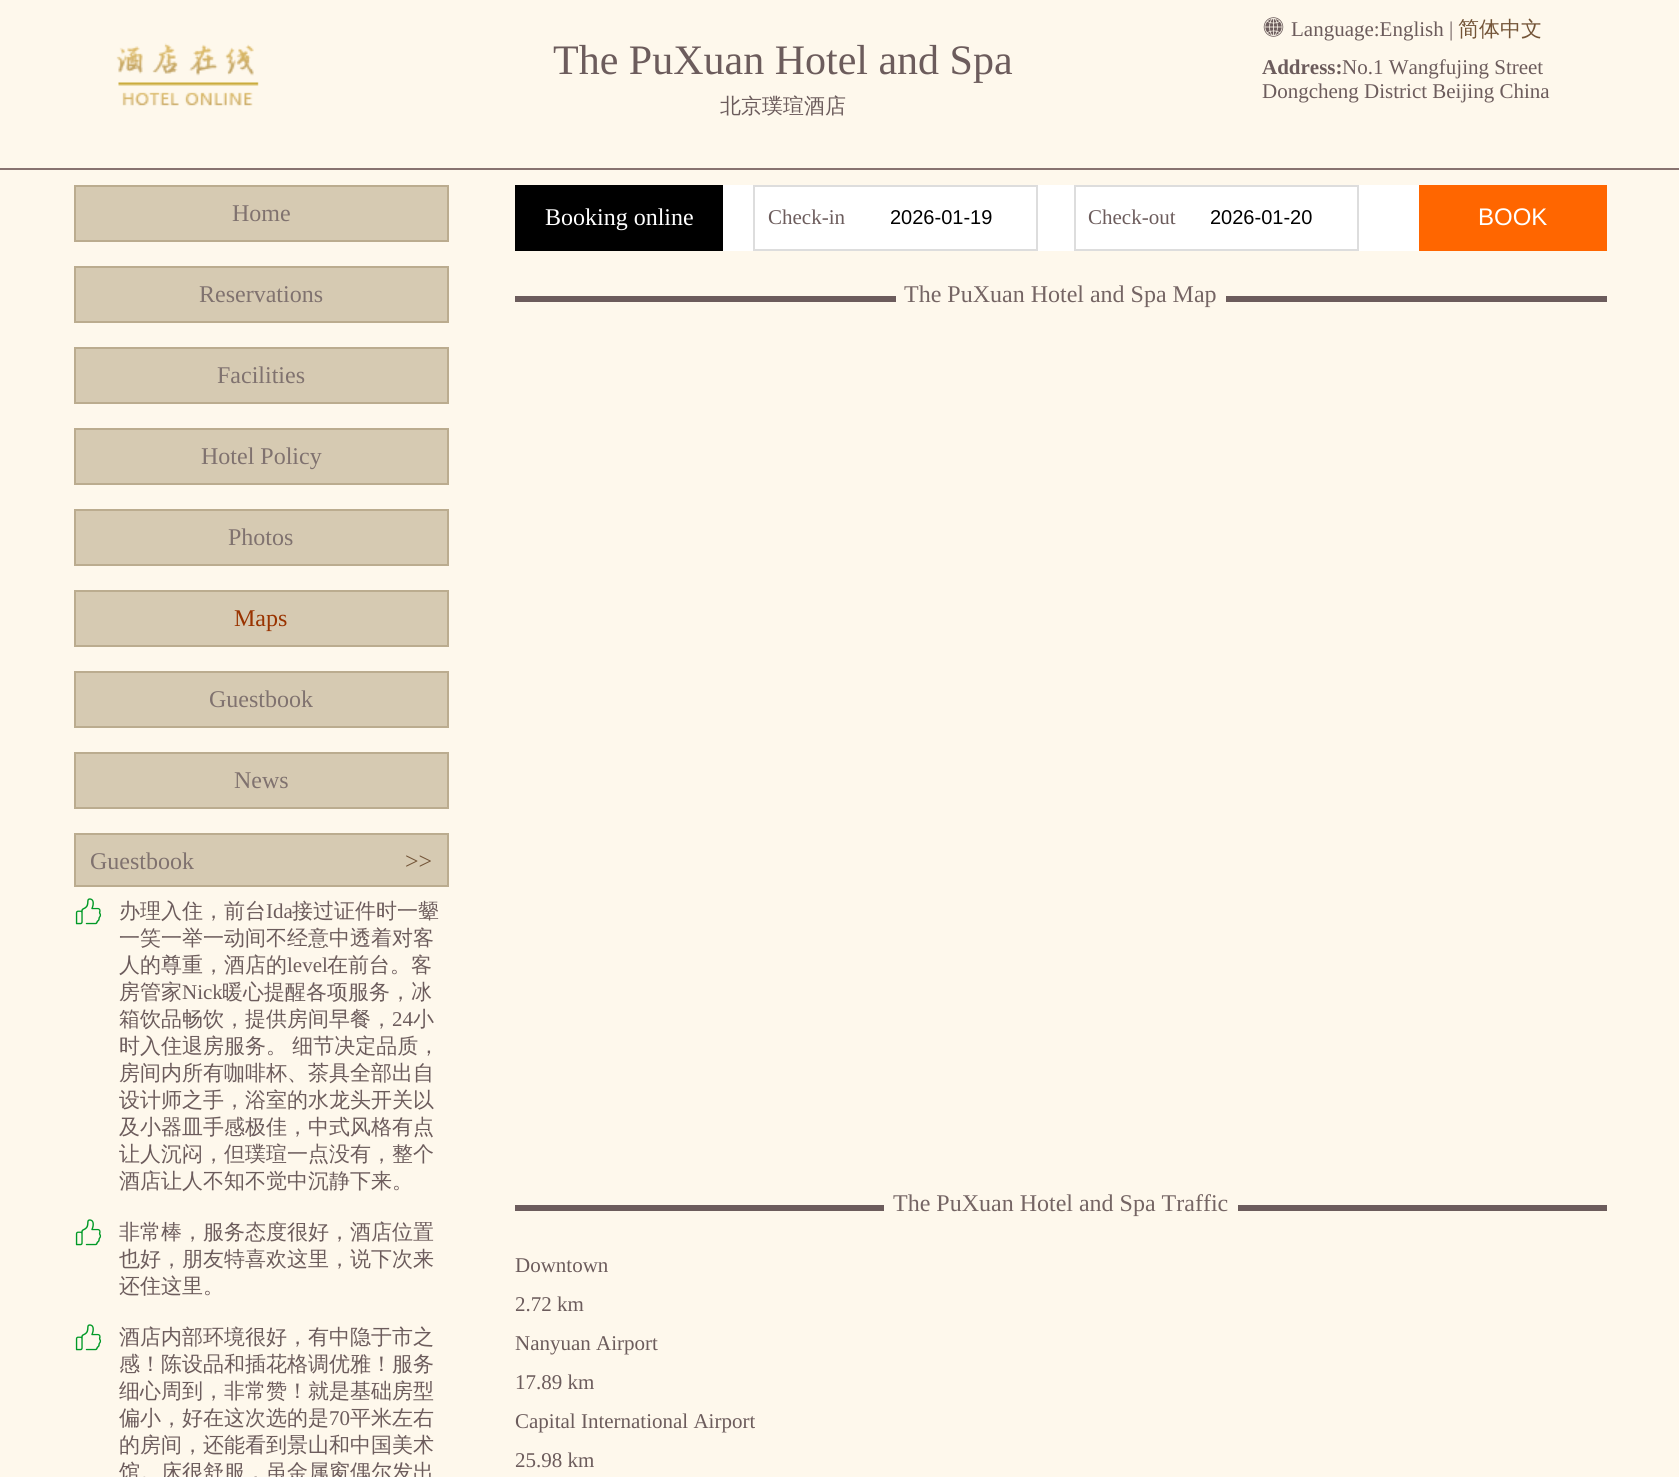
import math
import cairocffi as cairo

surface = cairo.ImageSurface(cairo.FORMAT_RGB24, 1679, 1477)
ctx = cairo.Context(surface)
options = cairo.FontOptions()
options.set_hint_metrics(cairo.HINT_METRICS_OFF)
options.set_hint_style(cairo.HINT_STYLE_NONE)
ctx.set_font_options(options)
ctx.set_miter_limit(4)


def rgb(r, g, b):
    ctx.set_source_rgb(r / 255, g / 255, b / 255)


def face(family, size, italic, bold):
    ctx.select_font_face(family, cairo.FONT_SLANT_ITALIC if italic else cairo.FONT_SLANT_NORMAL, cairo.FONT_WEIGHT_BOLD if bold else cairo.FONT_WEIGHT_NORMAL)
    ctx.set_font_size(size)


def label(x, y, s):
    ctx.move_to(x, y)
    ctx.show_text(s)


def tracked(x, y, s, letter, word):
    ctx.move_to(x, y)
    for ch in s:
        ctx.show_text(ch)
        ctx.rel_move_to(letter + word * (ch == ' '), 0)


def rect(x, y, w, h):
    ctx.rectangle(x, y, w, h)
    ctx.fill()


def image(path, x, y, w, h):
    ctx.save()
    ctx.set_source_surface(cairo.ImageSurface.create_from_png(path), x, y)
    ctx.rectangle(x, y, w, h)
    ctx.fill()
    ctx.restore()


rgb(254, 248, 236)
ctx.paint()
rgb(136, 115, 112)
rect(0, 168, 1679, 2)
image('image0.png', 116, 43, 143, 63)
face('Liberation Serif', 42, 0, 0)
rgb(108, 92, 92)
label(553, 74, 'The PuXuan Hotel and Spa')
face('WenQuanYi Zen Hei Medium', 21, 0, 0)
label(720, 113, '北京璞瑄酒店')
image('image1.png', 1263, 17, 21, 20)
face('Liberation Serif', 21, 0, 0)
label(1291, 36, 'Language:English |')
face('WenQuanYi Zen Hei Medium', 21, 0, 0)
rgb(115, 84, 55)
label(1458, 36, '简体中文')
face('Liberation Serif', 21, 0, 1)
rgb(108, 92, 92)
label(1262, 74, 'Address:')
face('Liberation Serif', 21, 0, 0)
label(1342, 74, 'No.1 Wangfujing Street')
label(1262, 98, 'Dongcheng District Beijing China')
rgb(214, 202, 178)
ctx.rectangle(75, 186, 373, 55)
ctx.fill_preserve()
rgb(187, 172, 143)
ctx.stroke()
face('Liberation Serif', 24, 0, 0)
rgb(128, 114, 111)
label(232, 221, 'Home')
rgb(214, 202, 178)
ctx.rectangle(75, 267, 373, 55)
ctx.fill_preserve()
rgb(187, 172, 143)
ctx.stroke()
rgb(128, 114, 111)
label(199, 302, 'Reservations')
rgb(214, 202, 178)
ctx.rectangle(75, 348, 373, 55)
ctx.fill_preserve()
rgb(187, 172, 143)
ctx.stroke()
rgb(128, 114, 111)
label(217, 383, 'Facilities')
rgb(214, 202, 178)
ctx.rectangle(75, 429, 373, 55)
ctx.fill_preserve()
rgb(187, 172, 143)
ctx.stroke()
rgb(128, 114, 111)
label(201, 464, 'Hotel Policy')
rgb(214, 202, 178)
ctx.rectangle(75, 510, 373, 55)
ctx.fill_preserve()
rgb(187, 172, 143)
ctx.stroke()
rgb(128, 114, 111)
label(228, 545, 'Photos')
rgb(214, 202, 178)
ctx.rectangle(75, 591, 373, 55)
ctx.fill_preserve()
rgb(187, 172, 143)
ctx.stroke()
rgb(153, 51, 0)
label(234, 626, 'Maps')
rgb(214, 202, 178)
ctx.rectangle(75, 672, 373, 55)
ctx.fill_preserve()
rgb(187, 172, 143)
ctx.stroke()
rgb(128, 114, 111)
label(209, 707, 'Guestbook')
rgb(214, 202, 178)
ctx.rectangle(75, 753, 373, 55)
ctx.fill_preserve()
rgb(187, 172, 143)
ctx.stroke()
rgb(128, 114, 111)
label(234, 788, 'News')
rgb(214, 202, 178)
ctx.rectangle(75, 834, 373, 52)
ctx.fill_preserve()
rgb(187, 172, 143)
ctx.stroke()
rgb(128, 114, 111)
label(90, 869, 'Guestbook')
rgb(115, 84, 55)
label(405, 869, '>>')
image('image2.png', 75, 898, 27, 27)
face('WenQuanYi Zen Hei Medium', 21, 0, 0)
rgb(108, 92, 92)
label(119, 918, '办理入住，前台')
face('Liberation Serif', 21, 0, 0)
label(266, 918, 'Ida')
face('WenQuanYi Zen Hei Medium', 21, 0, 0)
label(292, 918, '接过证件时一颦')
label(119, 945, '一笑一举一动间不经意中透着对客')
label(119, 972, '人的尊重，酒店的')
face('Liberation Serif', 21, 0, 0)
label(287, 972, 'level')
face('WenQuanYi Zen Hei Medium', 21, 0, 0)
label(327, 972, '在前台。客')
label(119, 999, '房管家')
face('Liberation Serif', 21, 0, 0)
label(182, 999, 'Nick')
face('WenQuanYi Zen Hei Medium', 21, 0, 0)
label(222, 999, '暖心提醒各项服务，冰')
label(119, 1026, '箱饮品畅饮，提供房间早餐，')
face('Liberation Serif', 21, 0, 0)
label(392, 1026, '24')
face('WenQuanYi Zen Hei Medium', 21, 0, 0)
label(413, 1026, '小')
tracked(119, 1053, '时入住退房服务。 细节决定品质，', 0, -1)
label(119, 1080, '房间内所有咖啡杯、茶具全部出自')
label(119, 1107, '设计师之手，浴室的水龙头开关以')
label(119, 1134, '及小器皿手感极佳，中式风格有点')
label(119, 1161, '让人沉闷，但璞瑄一点没有，整个')
label(119, 1188, '酒店让人不知不觉中沉静下来。')
image('image2.png', 75, 1219, 27, 27)
label(119, 1239, '非常棒，服务态度很好，酒店位置')
label(119, 1266, '也好，朋友特喜欢这里，说下次来')
label(119, 1293, '还住这里。')
image('image2.png', 75, 1324, 27, 27)
label(119, 1344, '酒店内部环境很好，有中隐于市之')
label(119, 1371, '感！陈设品和插花格调优雅！服务')
label(119, 1398, '细心周到，非常赞！就是基础房型')
label(119, 1425, '偏小，好在这次选的是')
face('Liberation Serif', 21, 0, 0)
label(329, 1425, '70')
face('WenQuanYi Zen Hei Medium', 21, 0, 0)
label(350, 1425, '平米左右')
label(119, 1452, '的房间，还能看到景山和中国美术')
label(119, 1479, '馆。床很舒服，虽金属窗偶尔发出')
rgb(255, 255, 255)
rect(723, 185, 696, 66)
rgb(0, 0, 0)
rect(515, 185, 208, 66)
face('Liberation Serif', 24, 0, 0)
rgb(255, 255, 255)
label(545, 225, 'Booking online')
ctx.rectangle(754, 186, 283, 64)
rgb(221, 221, 221)
ctx.stroke()
face('Liberation Serif', 21, 0, 0)
rgb(108, 92, 92)
label(768, 224, 'Check-in')
face('Liberation Sans', 20, 0, 0)
rgb(0, 0, 0)
label(890, 224, '2026-01-19')
ctx.rectangle(1075, 186, 283, 64)
rgb(221, 221, 221)
ctx.stroke()
face('Liberation Serif', 21, 0, 0)
rgb(108, 92, 92)
label(1088, 224, 'Check-out')
face('Liberation Sans', 20, 0, 0)
rgb(0, 0, 0)
label(1210, 224, '2026-01-20')
rgb(255, 102, 0)
rect(1419, 185, 188, 66)
face('Liberation Sans', 24, 0, 0)
rgb(255, 255, 255)
label(1478, 225, 'BOOK')
rgb(108, 92, 92)
rect(515, 296, 1092, 6)
rgb(254, 248, 236)
rect(896, 296, 330, 6)
face('Liberation Serif', 24, 0, 0)
rgb(117, 101, 100)
label(904, 302, 'The PuXuan Hotel and Spa Map')
rgb(108, 92, 92)
rect(515, 1205, 1092, 6)
rgb(254, 248, 236)
rect(884, 1205, 354, 6)
rgb(117, 101, 100)
label(893, 1211, 'The PuXuan Hotel and Spa Traffic')
face('Liberation Serif', 21, 0, 0)
rgb(108, 92, 92)
label(515, 1272, 'Downtown')
label(515, 1311, '2.72 km')
label(515, 1350, 'Nanyuan Airport')
label(515, 1389, '17.89 km')
label(515, 1428, 'Capital International Airport')
label(515, 1467, '25.98 km')
surface.write_to_png('render.png')
